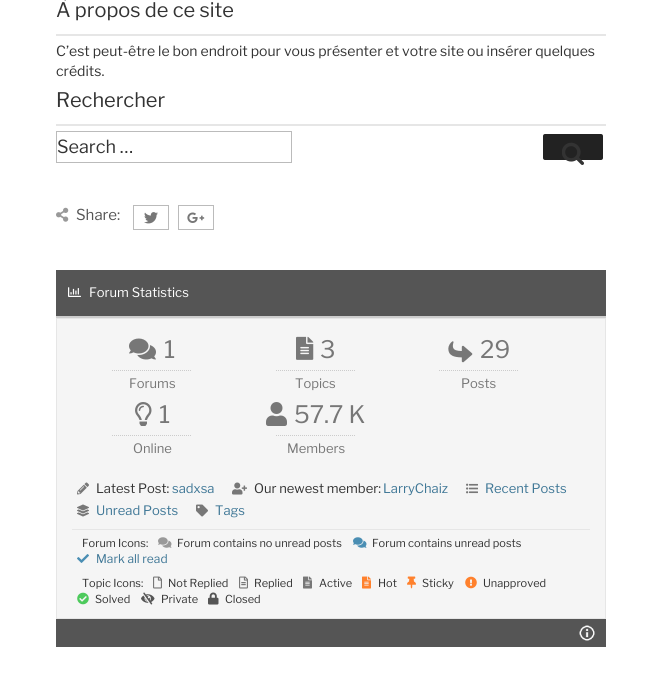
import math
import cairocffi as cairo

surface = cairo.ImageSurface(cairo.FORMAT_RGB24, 662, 677)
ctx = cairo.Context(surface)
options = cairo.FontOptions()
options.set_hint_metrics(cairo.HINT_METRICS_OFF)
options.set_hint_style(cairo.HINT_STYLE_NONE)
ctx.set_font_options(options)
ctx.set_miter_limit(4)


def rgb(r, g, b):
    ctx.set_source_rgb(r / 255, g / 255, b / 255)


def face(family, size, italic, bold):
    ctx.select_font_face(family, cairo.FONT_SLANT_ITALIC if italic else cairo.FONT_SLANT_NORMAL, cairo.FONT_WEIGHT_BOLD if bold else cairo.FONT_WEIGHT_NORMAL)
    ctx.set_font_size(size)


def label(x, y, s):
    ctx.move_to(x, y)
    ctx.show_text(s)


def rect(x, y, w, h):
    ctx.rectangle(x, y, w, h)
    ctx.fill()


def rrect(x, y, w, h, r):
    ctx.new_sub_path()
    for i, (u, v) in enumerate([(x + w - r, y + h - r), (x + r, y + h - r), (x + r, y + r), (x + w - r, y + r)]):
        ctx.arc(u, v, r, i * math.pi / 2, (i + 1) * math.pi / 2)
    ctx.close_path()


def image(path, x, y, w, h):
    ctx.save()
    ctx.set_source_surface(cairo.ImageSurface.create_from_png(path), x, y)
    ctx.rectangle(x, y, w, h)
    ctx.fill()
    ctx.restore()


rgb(255, 255, 255)
ctx.paint()
rgb(230, 230, 230)
rect(56, 34, 550, 2)
face('Libre Franklin', 20, 0, 0)
rgb(51, 51, 51)
label(56, 17, 'À propos de ce site')
face('Libre Franklin', 14, 0, 0)
label(56, 56, 'C’est peut-être le bon endroit pour vous présenter et votre site ou insérer quelques')
label(56, 76, 'crédits.')
rgb(230, 230, 230)
rect(56, 124, 550, 2)
face('Libre Franklin', 20, 0, 0)
rgb(51, 51, 51)
label(56, 107, 'Rechercher')
ctx.rectangle(56.5, 131.5, 235, 31)
rgb(187, 187, 187)
ctx.set_line_width(1)
ctx.stroke()
face('Libre Franklin', 18, 0, 0)
rgb(51, 51, 51)
label(57, 153, 'Search …')
rgb(34, 34, 34)
rrect(543, 134, 60, 26, 2)
ctx.fill()
image('image0.png', 562, 142, 22, 23)
image('image1.png', 56, 207, 13, 15)
face('Libre Franklin', 15, 0, 0)
rgb(85, 85, 85)
label(76, 220, 'Share:')
ctx.rectangle(133.5, 205.5, 35, 24)
rgb(187, 187, 187)
ctx.stroke()
image('image2.png', 144, 212, 14, 12)
ctx.rectangle(178.5, 205.5, 35, 24)
ctx.stroke()
image('image3.png', 187, 212, 18, 11)
rgb(85, 85, 85)
rect(56, 270, 550, 46)
rgb(204, 204, 204)
rect(56, 316, 550, 2)
image('image4.png', 68, 287, 13, 10)
face('Libre Franklin', 13, 0, 0)
rgb(255, 255, 255)
label(89, 297, 'Forum Statistics')
rgb(245, 245, 245)
ctx.rectangle(56.5, 318.5, 549, 300)
ctx.fill_preserve()
rgb(230, 230, 230)
ctx.stroke()
image('image5.png', 129, 338, 27, 22)
face('Libre Franklin', 24, 0, 0)
rgb(119, 119, 119)
label(164, 358, '1')
ctx.new_path()
ctx.move_to(112, 370.5)
ctx.line_to(192, 370.5)
rgb(204, 204, 204)
ctx.set_dash([1, 1])
ctx.stroke()
face('Libre Franklin', 13, 0, 0)
rgb(119, 119, 119)
label(129, 388, 'Forums')
image('image6.png', 296, 336, 18, 24)
face('Libre Franklin', 24, 0, 0)
label(320, 358, '3')
ctx.new_path()
ctx.move_to(276, 370.5)
ctx.line_to(356, 370.5)
rgb(204, 204, 204)
ctx.stroke()
face('Libre Franklin', 13, 0, 0)
rgb(119, 119, 119)
label(295, 388, 'Topics')
image('image7.png', 448, 341, 25, 22)
face('Libre Franklin', 24, 0, 0)
label(480, 358, '29')
ctx.new_path()
ctx.move_to(439, 370.5)
ctx.line_to(519, 370.5)
rgb(204, 204, 204)
ctx.stroke()
face('Libre Franklin', 13, 0, 0)
rgb(119, 119, 119)
label(461, 388, 'Posts')
image('image8.png', 135, 402, 17, 24)
face('Libre Franklin', 24, 0, 0)
label(159, 423, '1')
ctx.new_path()
ctx.move_to(112, 435.5)
ctx.line_to(192, 435.5)
rgb(204, 204, 204)
ctx.stroke()
face('Libre Franklin', 13, 0, 0)
rgb(119, 119, 119)
label(133, 453, 'Online')
image('image9.png', 266, 402, 21, 24)
face('Libre Franklin', 24, 0, 0)
label(294, 423, '57.7 K')
ctx.new_path()
ctx.move_to(276, 435.5)
ctx.line_to(356, 435.5)
rgb(204, 204, 204)
ctx.stroke()
face('Libre Franklin', 13, 0, 0)
rgb(119, 119, 119)
label(287, 453, 'Members')
image('image10.png', 77, 482, 12, 13)
rgb(51, 51, 51)
label(96, 493, 'Latest Post:')
rgb(63, 119, 150)
label(172, 493, 'sadxsa')
image('image11.png', 232, 482, 15, 13)
rgb(51, 51, 51)
label(254, 493, 'Our newest member:')
rgb(63, 119, 150)
label(383, 493, 'LarryChaiz')
image('image12.png', 466, 483, 12, 11)
label(485, 493, 'Recent Posts')
image('image13.png', 77, 504, 12, 13)
label(96, 515, 'Unread Posts')
image('image14.png', 196, 504, 12, 13)
label(215, 515, 'Tags')
rgb(230, 230, 230)
rect(72, 529, 518, 1)
face('Libre Franklin', 11, 0, 0)
rgb(51, 51, 51)
label(82, 547, 'Forum Icons:')
image('image15.png', 158, 537, 14, 11)
label(177, 547, 'Forum contains no unread posts')
image('image16.png', 353, 537, 14, 11)
label(372, 547, 'Forum contains unread posts')
image('image17.png', 77, 554, 12, 9)
face('Libre Franklin', 12, 0, 0)
rgb(63, 119, 150)
label(96, 563, 'Mark all read')
face('Libre Franklin', 11, 0, 0)
rgb(51, 51, 51)
label(82, 587, 'Topic Icons:')
image('image18.png', 153, 576, 9, 13)
label(168, 587, 'Not Replied')
image('image19.png', 239, 576, 9, 13)
label(254, 587, 'Replied')
image('image20.png', 303, 576, 9, 13)
label(319, 587, 'Active')
image('image21.png', 362, 576, 9, 13)
label(378, 587, 'Hot')
image('image22.png', 407, 576, 9, 13)
label(422, 587, 'Sticky')
image('image23.png', 465, 576, 12, 13)
label(483, 587, 'Unapproved')
image('image24.png', 77, 592, 12, 13)
label(95, 603, 'Solved')
image('image25.png', 141, 592, 14, 13)
label(161, 603, 'Private')
image('image26.png', 208, 592, 11, 13)
label(225, 603, 'Closed')
rgb(85, 85, 85)
rect(56, 619, 550, 28)
image('image27.png', 579, 625, 16, 16)
surface.write_to_png('render.png')
